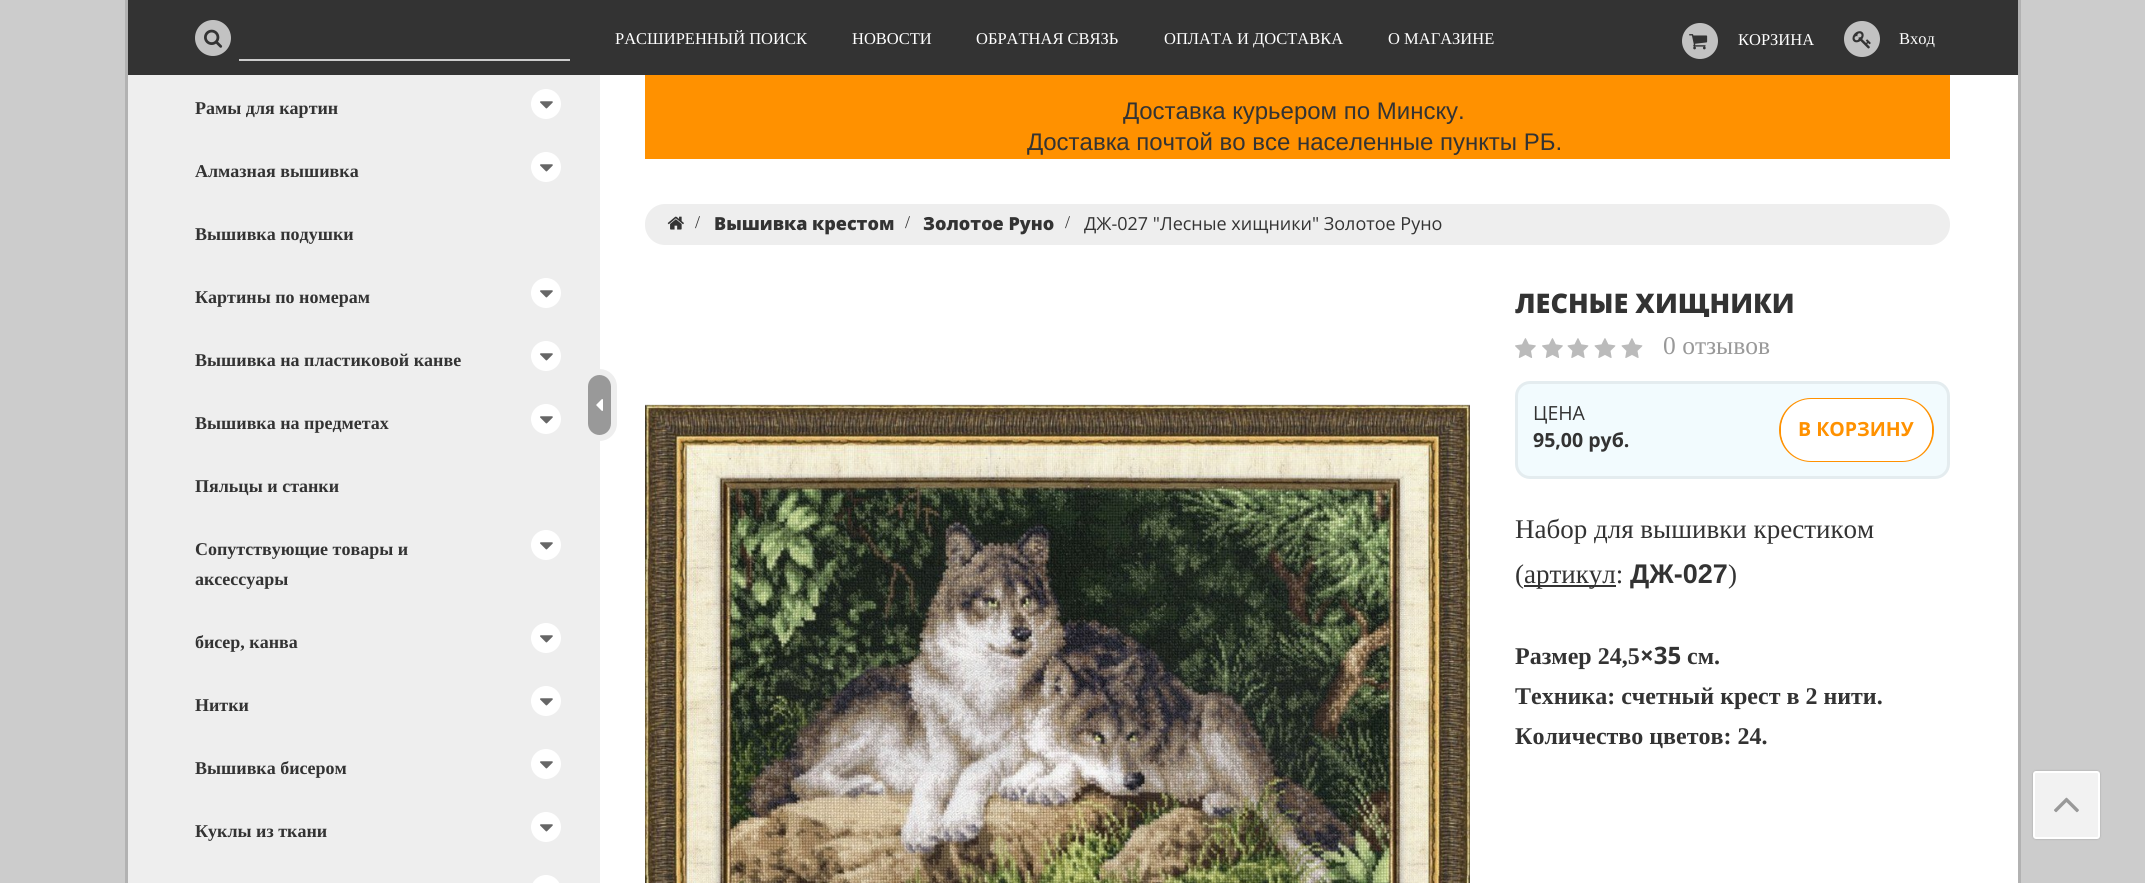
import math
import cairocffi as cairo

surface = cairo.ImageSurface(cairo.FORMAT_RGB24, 2145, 883)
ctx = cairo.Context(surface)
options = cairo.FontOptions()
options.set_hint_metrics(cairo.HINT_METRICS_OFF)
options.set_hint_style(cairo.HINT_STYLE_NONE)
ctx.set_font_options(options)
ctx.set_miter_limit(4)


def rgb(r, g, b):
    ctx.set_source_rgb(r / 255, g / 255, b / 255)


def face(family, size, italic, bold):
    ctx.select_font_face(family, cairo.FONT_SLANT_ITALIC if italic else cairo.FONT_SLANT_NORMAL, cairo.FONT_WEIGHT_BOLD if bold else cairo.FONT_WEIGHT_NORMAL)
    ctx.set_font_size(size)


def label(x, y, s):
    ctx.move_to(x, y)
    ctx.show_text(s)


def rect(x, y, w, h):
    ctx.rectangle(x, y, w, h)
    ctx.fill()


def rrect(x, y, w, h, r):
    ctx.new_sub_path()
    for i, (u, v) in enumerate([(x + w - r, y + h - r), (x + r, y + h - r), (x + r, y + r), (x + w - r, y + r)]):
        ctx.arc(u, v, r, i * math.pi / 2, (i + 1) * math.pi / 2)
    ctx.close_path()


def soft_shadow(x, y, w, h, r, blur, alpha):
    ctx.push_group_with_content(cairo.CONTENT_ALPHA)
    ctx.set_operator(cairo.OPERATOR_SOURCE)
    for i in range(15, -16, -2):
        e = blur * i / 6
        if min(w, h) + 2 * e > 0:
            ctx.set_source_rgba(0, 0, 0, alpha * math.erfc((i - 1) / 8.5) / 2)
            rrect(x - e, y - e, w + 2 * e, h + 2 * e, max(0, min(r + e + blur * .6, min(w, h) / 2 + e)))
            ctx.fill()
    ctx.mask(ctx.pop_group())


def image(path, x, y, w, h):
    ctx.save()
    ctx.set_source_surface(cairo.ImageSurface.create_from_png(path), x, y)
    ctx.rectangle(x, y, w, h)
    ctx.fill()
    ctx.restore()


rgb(204, 204, 204)
ctx.paint()
rgb(51, 51, 51)
rect(128, 0, 1890, 75)
rgb(194, 194, 194)
ctx.arc(213, 38, 18, 0, 2 * math.pi)
ctx.fill()
image('image0.png', 204, 29, 19, 19)
rgb(204, 204, 204)
rect(239, 59, 331, 2)
face('Liberation Serif', 16.5, 0, 0)
rgb(255, 255, 255)
label(615, 44, 'РАСШИРЕННЫЙ ПОИСК')
label(852, 44, 'НОВОСТИ')
label(976, 44, 'ОБРАТНАЯ СВЯЗЬ')
label(1164, 44, 'ОПЛАТА И ДОСТАВКА')
label(1388, 44, 'О МАГАЗИНЕ')
rgb(194, 194, 194)
ctx.new_path()
ctx.arc(1700, 41, 18, 0, 2 * math.pi)
ctx.fill()
image('image1.png', 1689, 34, 19, 16)
rgb(255, 255, 255)
label(1738, 45, 'КОРЗИНА')
rgb(194, 194, 194)
ctx.new_path()
ctx.arc(1862, 39, 18, 0, 2 * math.pi)
ctx.fill()
image('image2.png', 1852, 31, 19, 18)
rgb(255, 255, 255)
label(1899, 44, 'Вход')
rgb(178, 178, 178)
rect(2018, 0, 3, 883)
rect(125, 0, 3, 883)
rgb(255, 255, 255)
rect(600, 75, 1418, 808)
rgb(238, 238, 238)
rect(128, 75, 472, 808)
face('Liberation Serif', 18, 0, 1)
rgb(51, 51, 51)
label(195, 114, 'Рамы для картин')
rgb(255, 255, 255)
ctx.new_path()
ctx.arc(546, 104, 15, 0, 2 * math.pi)
ctx.fill()
image('image3.png', 540, 101, 13, 8)
rgb(51, 51, 51)
label(195, 177, 'Алмазная вышивка')
rgb(255, 255, 255)
ctx.new_path()
ctx.arc(546, 167, 15, 0, 2 * math.pi)
ctx.fill()
image('image3.png', 540, 164, 13, 8)
rgb(51, 51, 51)
label(195, 240, 'Вышивка подушки')
label(195, 303, 'Картины по номерам')
rgb(255, 255, 255)
ctx.new_path()
ctx.arc(546, 293, 15, 0, 2 * math.pi)
ctx.fill()
image('image3.png', 540, 290, 13, 8)
rgb(51, 51, 51)
label(195, 366, 'Вышивка на пластиковой канве')
rgb(255, 255, 255)
ctx.new_path()
ctx.arc(546, 356, 15, 0, 2 * math.pi)
ctx.fill()
image('image3.png', 540, 353, 13, 8)
rgb(51, 51, 51)
label(195, 429, 'Вышивка на предметах')
rgb(255, 255, 255)
ctx.new_path()
ctx.arc(546, 419, 15, 0, 2 * math.pi)
ctx.fill()
image('image3.png', 540, 416, 13, 8)
rgb(51, 51, 51)
label(195, 492, 'Пяльцы и станки')
label(195, 555, 'Сопутствующие товары и')
label(195, 585, 'аксессуары')
rgb(255, 255, 255)
ctx.new_path()
ctx.arc(546, 545, 15, 0, 2 * math.pi)
ctx.fill()
image('image3.png', 540, 542, 13, 8)
rgb(51, 51, 51)
label(195, 648, 'бисер, канва')
rgb(255, 255, 255)
ctx.new_path()
ctx.arc(546, 638, 15, 0, 2 * math.pi)
ctx.fill()
image('image3.png', 540, 635, 13, 8)
rgb(51, 51, 51)
label(195, 711, 'Нитки')
rgb(255, 255, 255)
ctx.new_path()
ctx.arc(546, 701, 15, 0, 2 * math.pi)
ctx.fill()
image('image3.png', 540, 698, 13, 8)
rgb(51, 51, 51)
label(195, 774, 'Вышивка бисером')
rgb(255, 255, 255)
ctx.new_path()
ctx.arc(546, 764, 15, 0, 2 * math.pi)
ctx.fill()
image('image3.png', 540, 761, 13, 8)
rgb(51, 51, 51)
label(195, 837, 'Куклы из ткани')
rgb(255, 255, 255)
ctx.new_path()
ctx.arc(546, 827, 15, 0, 2 * math.pi)
ctx.fill()
image('image3.png', 540, 824, 13, 8)
rrect(531, 875, 30, 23, 15)
ctx.fill()
rrect(585, 372, 29, 66, 14.5)
rgb(238, 238, 238)
ctx.set_line_width(6)
ctx.stroke()
rgb(153, 153, 153)
rrect(588, 375, 23, 60, 11.5)
ctx.fill()
image('image4.png', 596, 399, 7, 12)
rgb(255, 145, 0)
rect(645, 75, 1305, 84)
face('Liberation Sans', 24, 0, 0)
rgb(51, 51, 51)
label(1123, 119, 'Доставка курьером по Минску.')
label(1027, 150, 'Доставка почтой во все населенные пункты РБ.')
rgb(238, 238, 238)
rrect(645, 204, 1305, 41, 20)
ctx.fill()
image('image5.png', 667, 216, 17, 14)
face('Liberation Serif', 18, 0, 0)
rgb(51, 51, 51)
label(695, 228, '/')
face('Open Sans ExtraBold', 18, 0, 0)
label(714, 230, 'Вышивка крестом')
face('Liberation Serif', 18, 0, 0)
label(905, 228, '/')
face('Open Sans ExtraBold', 18, 0, 0)
label(923, 230, 'Золотое Руно')
face('Liberation Serif', 18, 0, 0)
label(1065, 228, '/')
face('Open Sans', 18, 0, 0)
label(1084, 230, 'ДЖ-027 "Лесные хищники" Золотое Руно')
image('image6.png', 645, 404, 825, 479)
ctx.save()
ctx.rectangle(1515, 290, 279, 27)
ctx.clip()
face('Open Sans ExtraBold', 27, 0, 0)
label(1515, 313, 'ЛЕСНЫЕ ХИЩНИКИ')
ctx.restore()
image('image7.png', 1515, 338, 21, 20)
image('image7.png', 1542, 338, 21, 20)
image('image8.png', 1567, 338, 22, 20)
image('image8.png', 1594, 338, 22, 20)
image('image8.png', 1621, 338, 22, 20)
face('Liberation Serif', 25.5, 0, 0)
rgb(153, 153, 153)
label(1663, 354, '0 отзывов')
rgb(242, 251, 254)
rrect(1516.5, 382.5, 432, 95, 13.5)
ctx.fill_preserve()
rgb(228, 236, 239)
ctx.set_line_width(3)
ctx.stroke()
face('Open Sans', 19.5, 0, 0)
rgb(51, 51, 51)
label(1533, 420, 'ЦЕНА')
face('Open Sans', 19.5, 0, 1)
label(1533, 447, '95,00 руб.')
rrect(1780, 399, 153, 62, 31)
rgb(255, 145, 0)
ctx.set_line_width(2)
ctx.stroke()
rgb(255, 255, 255)
rrect(1781, 399, 151, 62, 30)
ctx.fill()
rgb(255, 145, 0)
label(1798, 436, 'В КОРЗИНУ')
face('Liberation Serif', 27, 0, 0)
rgb(51, 51, 51)
label(1515, 538, 'Набор для вышивки крестиком')
label(1515, 583, '(')
rect(1524, 585, 92, 2)
label(1524, 583, 'артикул:')
face('Liberation Sans', 27, 0, 1)
label(1630, 583, 'ДЖ-027')
face('Liberation Serif', 27, 0, 0)
label(1728, 583, ')')
face('Liberation Serif', 24, 0, 1)
label(1515, 664, 'Размер 24,5')
face('Open Sans', 24, 0, 1)
label(1640, 664, '×35')
face('Liberation Serif', 24, 0, 1)
label(1687, 664, 'см.')
label(1515, 704, 'Техника: счетный крест в 2 нити.')
label(1515, 744, 'Количество цветов: 24.')
rgb(0, 0, 0)
soft_shadow(2033, 771, 67, 68, 3, 1, 0.2)
rgb(242, 242, 242)
rrect(2034, 772, 65, 66, 2)
ctx.fill_preserve()
rgb(255, 255, 255)
ctx.stroke()
image('image9.png', 2054, 797, 25, 16)
surface.write_to_png('render.png')
